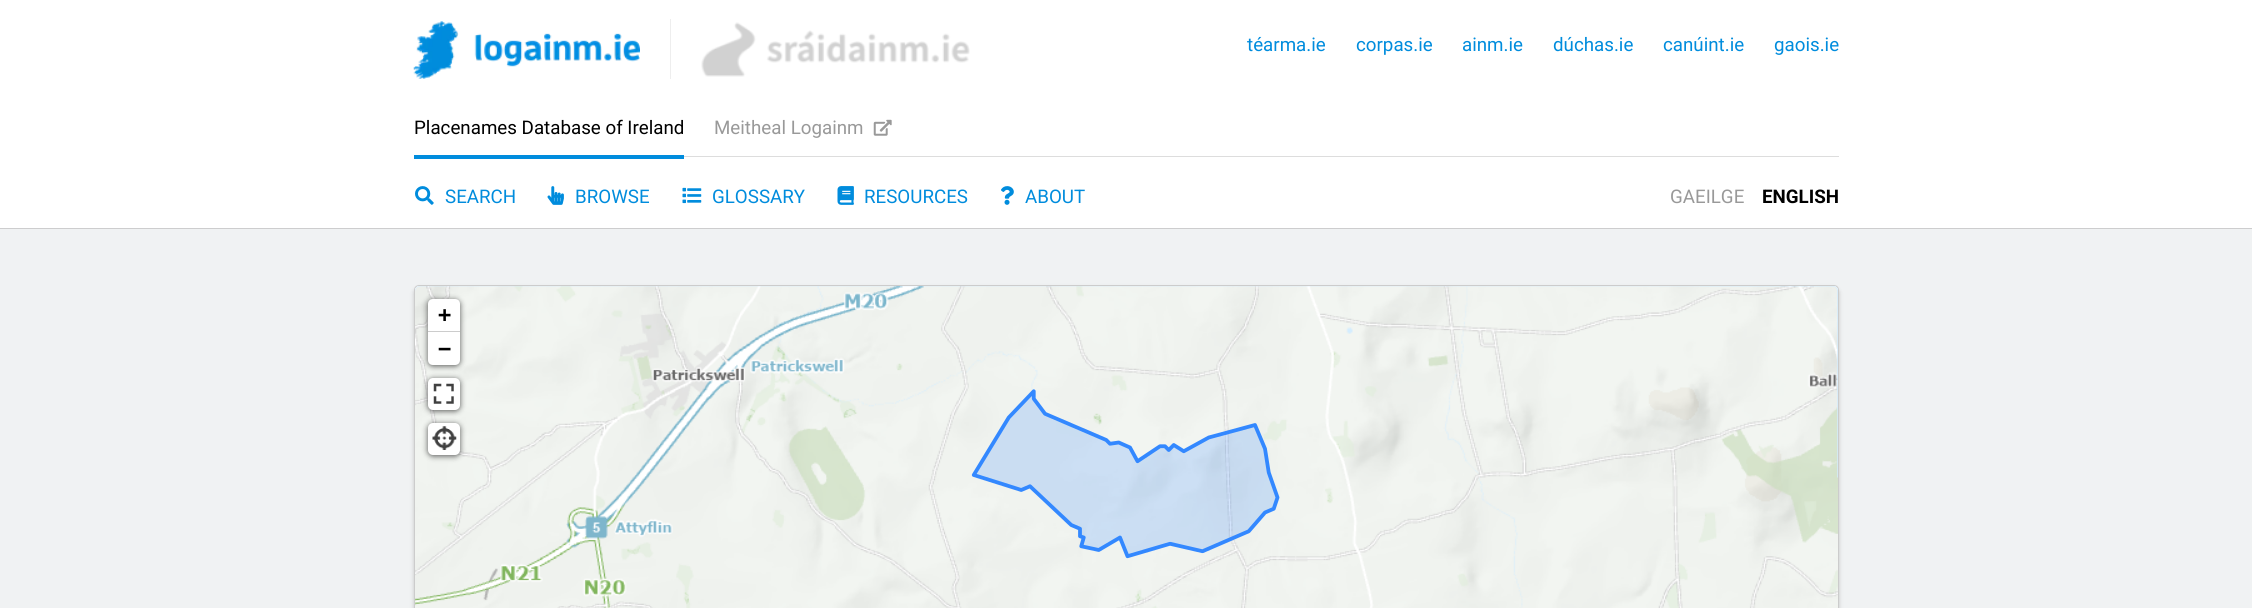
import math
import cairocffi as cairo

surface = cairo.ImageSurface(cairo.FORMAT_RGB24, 2252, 608)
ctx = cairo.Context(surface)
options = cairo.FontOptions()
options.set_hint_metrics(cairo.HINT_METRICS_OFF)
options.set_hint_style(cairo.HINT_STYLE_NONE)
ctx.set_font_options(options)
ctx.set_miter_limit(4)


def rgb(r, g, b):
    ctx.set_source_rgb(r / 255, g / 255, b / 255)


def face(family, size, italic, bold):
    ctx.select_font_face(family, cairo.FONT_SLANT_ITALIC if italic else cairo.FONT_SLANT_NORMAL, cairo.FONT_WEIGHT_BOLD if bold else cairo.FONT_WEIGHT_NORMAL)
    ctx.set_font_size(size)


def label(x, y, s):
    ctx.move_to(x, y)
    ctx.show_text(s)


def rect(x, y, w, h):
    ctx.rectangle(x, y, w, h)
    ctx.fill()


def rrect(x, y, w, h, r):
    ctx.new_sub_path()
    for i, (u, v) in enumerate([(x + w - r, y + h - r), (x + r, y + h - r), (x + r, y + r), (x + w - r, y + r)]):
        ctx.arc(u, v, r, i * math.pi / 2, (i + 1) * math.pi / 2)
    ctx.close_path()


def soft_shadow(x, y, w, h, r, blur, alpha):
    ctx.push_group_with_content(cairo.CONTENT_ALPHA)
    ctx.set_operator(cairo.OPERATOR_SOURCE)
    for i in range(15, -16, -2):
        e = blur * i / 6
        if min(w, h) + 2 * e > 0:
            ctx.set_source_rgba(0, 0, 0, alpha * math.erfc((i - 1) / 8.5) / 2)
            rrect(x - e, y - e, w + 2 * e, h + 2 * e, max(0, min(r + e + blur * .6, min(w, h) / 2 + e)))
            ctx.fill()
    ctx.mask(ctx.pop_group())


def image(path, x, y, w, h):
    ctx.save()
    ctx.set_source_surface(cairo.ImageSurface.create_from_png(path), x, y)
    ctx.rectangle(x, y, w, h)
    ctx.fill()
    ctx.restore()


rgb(240, 242, 243)
ctx.paint()
rgb(255, 255, 255)
rect(0, 0, 2252, 228)
rgb(205, 205, 206)
rect(0, 228, 2252, 1)
image('image0.png', 413, 21, 227, 58)
rgb(238, 238, 238)
rect(670, 19, 1, 60)
image('image1.png', 701, 22, 269, 55)
face('Roboto', 18.75, 0, 0)
rgb(0, 140, 221)
label(1247, 51, 'téarma.ie')
label(1356, 51, 'corpas.ie')
label(1462, 51, 'ainm.ie')
label(1553, 51, 'dúchas.ie')
label(1663, 51, 'canúint.ie')
label(1774, 51, 'gaois.ie')
rgb(221, 221, 221)
rect(684, 156, 1155, 1)
rgb(0, 140, 221)
rect(414, 155, 270, 4)
rgb(0, 0, 0)
label(414, 134, 'Placenames Database of Ireland')
rgb(153, 153, 153)
label(714, 134, 'Meitheal Logainm')
image('image2.png', 873, 119, 19, 17)
image('image3.png', 415, 186, 19, 19)
rgb(0, 140, 221)
label(445, 203, 'SEARCH')
image('image4.png', 547, 186, 17, 19)
label(575, 203, 'BROWSE')
image('image5.png', 682, 187, 20, 17)
label(712, 203, 'GLOSSARY')
image('image6.png', 837, 186, 17, 19)
label(864, 203, 'RESOURCES')
image('image7.png', 1001, 186, 13, 19)
label(1025, 203, 'ABOUT')
rgb(153, 153, 153)
label(1670, 203, 'GAEILGE')
face('Roboto', 18.75, 0, 1)
rgb(0, 0, 0)
label(1762, 203, 'ENGLISH')
rgb(150, 150, 150)
soft_shadow(414, 288, 1425, 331, 5, 2, 0.5)
rgb(255, 255, 255)
rrect(414.5, 285.5, 1424, 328, 4.5)
ctx.fill_preserve()
rgb(204, 204, 204)
ctx.set_line_width(1)
ctx.stroke()
ctx.save()
rrect(415, 286, 1423, 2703, 4)
ctx.clip()
rgb(211, 236, 253)
ctx.new_path()
ctx.move_to(420, 286)
ctx.line_to(1833, 286)
ctx.curve_to(1836, 286, 1838, 288, 1838, 291)
ctx.line_to(1838, 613)
ctx.line_to(415, 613)
ctx.line_to(415, 291)
ctx.curve_to(415, 288, 417, 286, 420, 286)
ctx.close_path()
ctx.fill()
ctx.restore()
image('image8.png', 415, 286, 5, 192)
image('image9.png', 420, 286, 320, 192)
image('image10.png', 740, 286, 320, 192)
image('image11.png', 1060, 286, 320, 192)
image('image12.png', 1380, 286, 320, 192)
image('image13.png', 1700, 286, 138, 192)
image('image14.png', 415, 478, 5, 130)
image('image15.png', 420, 477, 320, 131)
image('image16.png', 740, 477, 320, 131)
image('image17.png', 1060, 477, 320, 131)
image('image18.png', 1380, 477, 320, 131)
image('image19.png', 1700, 477, 138, 131)
image('image20.png', 971, 389, 309, 170)
rgb(0, 0, 0)
soft_shadow(428, 300, 32, 66, 5, 3, 0.65)
rgb(255, 255, 255)
ctx.new_path()
ctx.move_to(433, 299)
ctx.line_to(455, 299)
ctx.curve_to(458, 299, 460, 301, 460, 304)
ctx.line_to(460, 333)
ctx.line_to(428, 333)
ctx.line_to(428, 304)
ctx.curve_to(428, 301, 430, 299, 433, 299)
ctx.close_path()
ctx.fill()
rgb(204, 204, 204)
rect(428, 331, 32, 1)
face('DejaVu Sans Mono', 22, 0, 1)
rgb(0, 0, 0)
label(438, 322, '+')
rgb(255, 255, 255)
ctx.new_path()
ctx.move_to(428, 333)
ctx.line_to(460, 333)
ctx.line_to(460, 360)
ctx.curve_to(460, 363, 458, 365, 455, 365)
ctx.line_to(433, 365)
ctx.curve_to(430, 365, 428, 363, 428, 360)
ctx.close_path()
ctx.fill()
rgb(0, 0, 0)
label(438, 356, '−')
rgb(0, 0, 0)
soft_shadow(428, 379, 32, 32, 5, 3, 0.65)
rgb(255, 255, 255)
rrect(428, 378, 32, 32, 5)
ctx.fill()
image('image21.png', 433, 383, 21, 21)
rgb(0, 0, 0)
soft_shadow(428, 424, 32, 32, 5, 3, 0.65)
rgb(255, 255, 255)
rrect(428, 423, 32, 32, 5)
ctx.fill()
image('image22.png', 432, 426, 25, 24)
surface.write_to_png('render.png')
